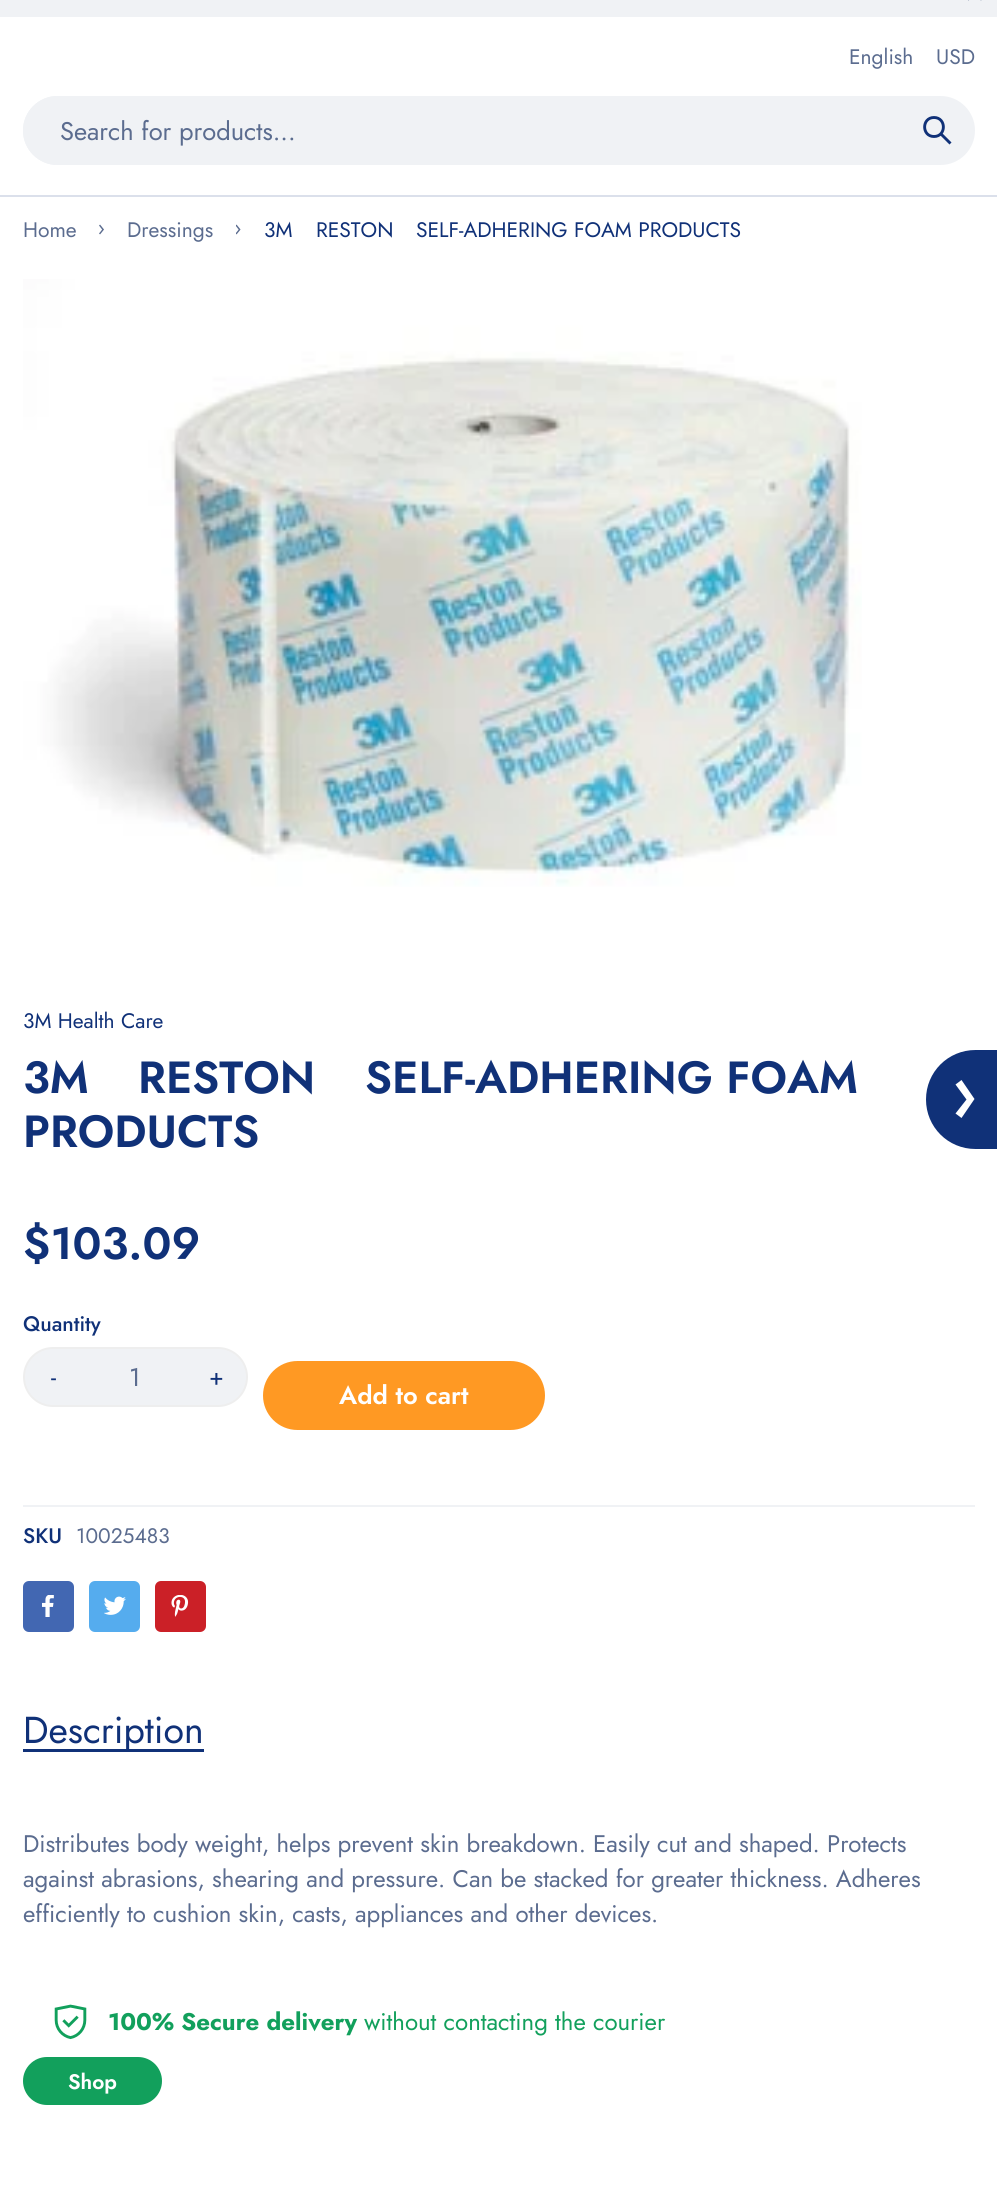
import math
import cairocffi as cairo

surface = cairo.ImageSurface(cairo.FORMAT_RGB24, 997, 2198)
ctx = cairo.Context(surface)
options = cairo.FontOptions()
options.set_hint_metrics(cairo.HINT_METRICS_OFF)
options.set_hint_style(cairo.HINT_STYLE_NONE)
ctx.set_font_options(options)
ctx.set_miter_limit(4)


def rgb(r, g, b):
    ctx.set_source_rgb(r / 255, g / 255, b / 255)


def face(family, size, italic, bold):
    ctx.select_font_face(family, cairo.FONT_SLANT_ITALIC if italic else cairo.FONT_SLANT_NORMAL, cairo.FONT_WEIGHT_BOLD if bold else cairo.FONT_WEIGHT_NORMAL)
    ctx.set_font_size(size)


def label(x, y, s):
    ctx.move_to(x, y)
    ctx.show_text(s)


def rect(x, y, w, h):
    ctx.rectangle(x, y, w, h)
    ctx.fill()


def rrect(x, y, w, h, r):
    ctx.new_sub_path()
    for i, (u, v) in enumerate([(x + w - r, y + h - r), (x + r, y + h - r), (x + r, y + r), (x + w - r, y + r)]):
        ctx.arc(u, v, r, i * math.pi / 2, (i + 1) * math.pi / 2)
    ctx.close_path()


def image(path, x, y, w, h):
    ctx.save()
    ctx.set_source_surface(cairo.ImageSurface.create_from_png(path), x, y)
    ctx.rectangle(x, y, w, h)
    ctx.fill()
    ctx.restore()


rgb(255, 255, 255)
ctx.paint()
rgb(240, 242, 245)
rect(0, 0, 997, 17)
ctx.new_path()
ctx.move_to(982, -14.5)
ctx.line_to(967.5, -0.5)
ctx.move_to(967.5, -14.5)
ctx.line_to(982, -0.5)
rgb(91, 108, 143)
ctx.set_line_width(2.9)
ctx.stroke()
face('Jost', 21, 0, 0)
label(849, 64, 'English')
label(936, 64, 'USD')
rgb(240, 242, 245)
rrect(23, 96, 952, 69, 34.5)
ctx.fill()
rrect(23, 96, 877, 69, 34.5)
ctx.fill()
face('Jost', 25.5, 0, 0)
rgb(91, 108, 143)
label(60, 140, 'Search for products...')
ctx.new_path()
ctx.move_to(934, 136.5)
ctx.curve_to(946.5, 136.5, 946.5, 117.5, 934, 117.5)
ctx.curve_to(921.5, 117.5, 921.5, 136.5, 934, 136.5)
ctx.close_path()
ctx.move_to(950.5, 143.5)
ctx.line_to(940.5, 133.5)
rgb(16, 49, 120)
ctx.stroke()
rgb(219, 224, 235)
rect(0, 195, 997, 2)
face('Jost', 21, 0, 0)
rgb(91, 108, 143)
label(23, 237, 'Home')
image('image0.png', 99, 224, 5, 11)
label(127, 237, 'Dressings')
image('image1.png', 236, 224, 5, 11)
rgb(16, 49, 120)
label(264, 237, '3M')
label(316, 237, 'RESTON')
label(416, 237, 'SELF-ADHERING FOAM PRODUCTS')
image('image2.png', 23, 279, 839, 608)
label(23, 1028, '3M Health Care')
face('Jost SemiBold', 45, 0, 0)
label(23, 1093, '3M')
label(138, 1093, 'RESTON')
label(365, 1093, 'SELF-ADHERING FOAM')
label(23, 1147, 'PRODUCTS')
label(23, 1259, '$103.09')
face('Jost Medium', 21, 0, 0)
label(23, 1331, 'Quantity')
rgb(240, 242, 245)
rrect(24, 1348, 223, 58, 29)
ctx.fill_preserve()
rgb(238, 238, 238)
ctx.set_line_width(2)
ctx.stroke()
face('Jost', 24, 0, 0)
rgb(16, 49, 120)
label(51, 1385, '-')
face('Jost', 25.5, 0, 0)
rgb(91, 108, 143)
label(129, 1386, '1')
face('Jost', 24, 0, 0)
rgb(16, 49, 120)
label(209, 1385, '+')
rgb(255, 153, 35)
rrect(264, 1362, 280, 67, 33.5)
ctx.fill_preserve()
ctx.stroke()
face('Jost SemiBold', 25.5, 0, 0)
rgb(255, 255, 255)
label(339, 1404, 'Add to cart')
rgb(240, 242, 245)
rect(23, 1505, 952, 2)
face('Jost Medium', 21, 0, 0)
rgb(16, 49, 120)
label(23, 1543, 'SKU')
face('Jost', 21, 0, 0)
rgb(91, 108, 143)
label(76, 1543, '10025483')
rgb(66, 103, 178)
rrect(23, 1581, 51, 51, 6)
ctx.fill()
image('image3.png', 42, 1595, 12, 22)
rgb(85, 172, 238)
rrect(89, 1581, 51, 51, 6)
ctx.fill()
image('image4.png', 104, 1596, 22, 19)
rgb(203, 32, 39)
rrect(155, 1581, 51, 51, 6)
ctx.fill()
image('image5.png', 171, 1595, 18, 22)
face('Jost', 37.5, 0, 0)
rgb(16, 49, 120)
label(23, 1743, 'Description')
rect(23, 1749, 181, 3)
face('Jost', 24, 0, 0)
rgb(91, 108, 143)
label(23, 1852, 'Distributes body weight, helps prevent skin breakdown. Easily cut and shaped. Protects')
label(23, 1887, 'against abrasions, shearing and pressure. Can be stacked for greater thickness. Adheres')
label(23, 1922, 'efficiently to cushion skin, casts, appliances and other devices.')
rgb(16, 49, 120)
ctx.new_path()
ctx.move_to(975.5, 1050)
ctx.line_to(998, 1050)
ctx.line_to(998, 1149)
ctx.line_to(975.5, 1149)
ctx.curve_to(948, 1149, 926, 1127, 926, 1099.5)
ctx.curve_to(926, 1072, 948, 1050, 975.5, 1050)
ctx.close_path()
ctx.fill()
rgb(255, 255, 255)
ctx.new_path()
ctx.move_to(966.5, 1099.5)
ctx.line_to(955.5, 1113.5)
ctx.line_to(961.5, 1118)
ctx.line_to(974.5, 1099)
ctx.line_to(961.5, 1080)
ctx.line_to(955.5, 1084.5)
ctx.close_path()
ctx.fill()
image('image6.png', 54, 2004, 33, 36)
face('Jost', 24, 0, 1)
rgb(18, 160, 92)
label(108, 2030, '100% Secure delivery')
face('Jost', 24, 0, 0)
label(364, 2030, 'without contacting the courier')
rrect(23, 2057, 139, 48, 24)
ctx.fill()
face('Jost SemiBold', 21, 0, 0)
rgb(255, 255, 255)
label(68, 2089, 'Shop')
surface.write_to_png('render.png')
